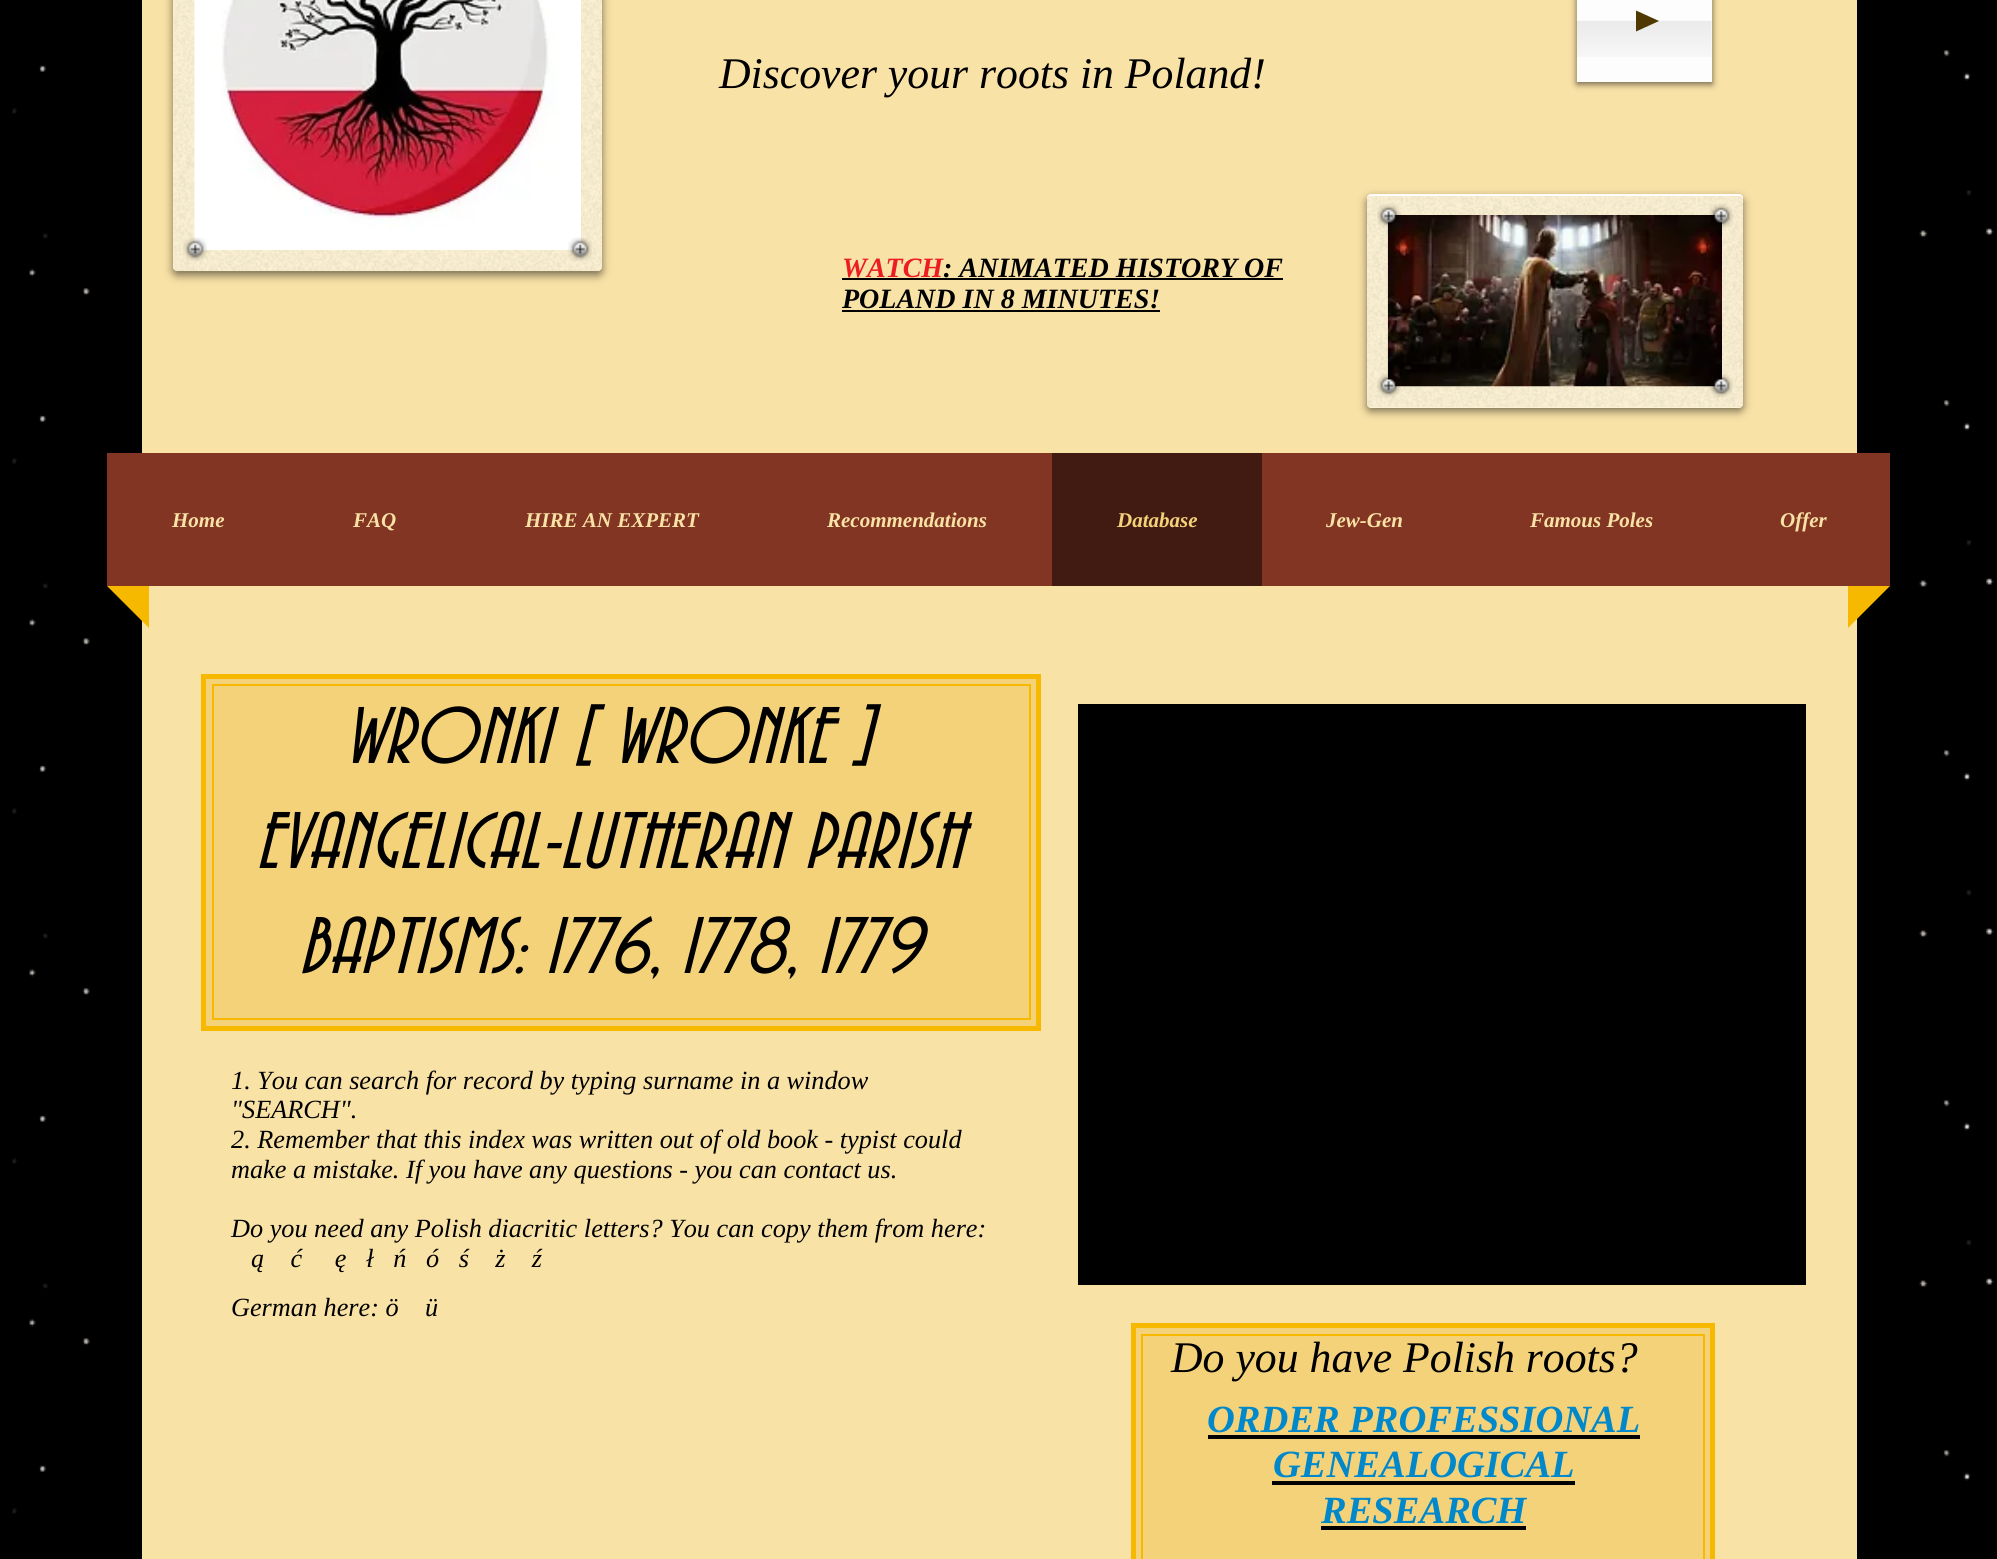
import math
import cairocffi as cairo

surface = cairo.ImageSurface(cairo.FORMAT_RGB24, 1997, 1559)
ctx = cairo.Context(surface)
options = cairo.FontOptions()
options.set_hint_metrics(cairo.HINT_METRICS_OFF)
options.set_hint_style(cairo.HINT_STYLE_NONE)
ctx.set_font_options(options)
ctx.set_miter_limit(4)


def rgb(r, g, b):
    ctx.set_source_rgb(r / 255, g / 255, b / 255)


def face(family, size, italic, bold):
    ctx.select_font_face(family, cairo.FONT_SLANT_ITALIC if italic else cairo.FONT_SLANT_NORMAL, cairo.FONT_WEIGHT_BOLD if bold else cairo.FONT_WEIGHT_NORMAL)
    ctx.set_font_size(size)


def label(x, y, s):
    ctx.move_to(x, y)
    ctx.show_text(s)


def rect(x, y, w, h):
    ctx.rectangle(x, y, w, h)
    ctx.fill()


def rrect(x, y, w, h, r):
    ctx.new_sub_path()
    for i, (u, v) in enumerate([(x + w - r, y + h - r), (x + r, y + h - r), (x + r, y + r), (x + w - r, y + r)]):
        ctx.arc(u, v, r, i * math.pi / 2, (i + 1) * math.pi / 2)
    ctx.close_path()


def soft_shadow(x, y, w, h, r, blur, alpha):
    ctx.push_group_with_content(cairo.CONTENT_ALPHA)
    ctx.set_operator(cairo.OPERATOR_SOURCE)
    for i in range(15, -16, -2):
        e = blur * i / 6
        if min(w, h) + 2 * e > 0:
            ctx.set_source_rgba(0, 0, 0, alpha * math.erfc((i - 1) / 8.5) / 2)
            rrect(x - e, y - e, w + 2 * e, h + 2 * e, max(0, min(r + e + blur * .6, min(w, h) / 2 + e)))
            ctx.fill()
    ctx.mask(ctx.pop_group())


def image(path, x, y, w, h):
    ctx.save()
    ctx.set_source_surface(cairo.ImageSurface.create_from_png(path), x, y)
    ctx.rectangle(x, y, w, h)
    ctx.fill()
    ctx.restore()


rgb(0, 0, 0)
ctx.paint()
image('image0.png', 12, 50, 1982, 1464)
rgb(249, 226, 166)
rect(142, 0, 1715, 1559)
ctx.save()
ctx.set_fill_rule(cairo.FILL_RULE_EVEN_ODD)
ctx.new_path()
ctx.move_to(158, 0)
ctx.line_to(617, 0)
ctx.line_to(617, 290)
ctx.line_to(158, 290)
ctx.close_path()
ctx.move_to(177, -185)
ctx.line_to(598, -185)
ctx.curve_to(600, -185, 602, -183, 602, -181)
ctx.line_to(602, 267)
ctx.curve_to(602, 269, 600, 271, 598, 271)
ctx.line_to(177, 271)
ctx.curve_to(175, 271, 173, 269, 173, 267)
ctx.line_to(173, -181)
ctx.curve_to(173, -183, 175, -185, 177, -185)
ctx.close_path()
ctx.clip()
rgb(0, 0, 0)
soft_shadow(173, -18, 429, 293, 4, 4.5, 0.53)
ctx.restore()
ctx.set_source_rgba(1, 1, 1, 0.5)
rrect(173, -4, 429, 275, 4)
ctx.fill()
image('image1.png', 173, 0, 429, 271)
image('image2.png', 194, 0, 387, 250)
image('image3.png', 183, 237, 24, 24)
image('image4.png', 568, 237, 24, 24)
face('Liberation Serif', 43.75, 1, 0)
rgb(0, 0, 0)
label(719, 88, 'Discover your roots in Poland!')
rgb(0, 0, 0)
soft_shadow(1577, -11, 135, 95, 0, 3.5, 0.6)
rgb(254, 253, 253)
rect(1577, 0, 135, 82)
image('image5.png', 1576, 0, 136, 57)
rgb(79, 57, 0)
ctx.new_path()
ctx.move_to(1636, 31.5)
ctx.line_to(1636, 10.5)
ctx.line_to(1659, 21)
ctx.close_path()
ctx.fill()
face('Liberation Serif', 28, 1, 1)
rgb(237, 28, 36)
label(842, 277, 'WATCH')
rgb(0, 0, 0)
rect(842, 278, 441, 2)
label(943, 277, ': ANIMATED HISTORY OF')
label(842, 308, 'POLAND IN 8 MINUTES!')
rect(842, 310, 318, 2)
ctx.save()
ctx.set_fill_rule(cairo.FILL_RULE_EVEN_ODD)
ctx.new_path()
ctx.move_to(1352, 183)
ctx.line_to(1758, 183)
ctx.line_to(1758, 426)
ctx.line_to(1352, 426)
ctx.close_path()
ctx.move_to(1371, 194)
ctx.line_to(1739, 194)
ctx.curve_to(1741, 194, 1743, 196, 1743, 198)
ctx.line_to(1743, 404)
ctx.curve_to(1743, 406, 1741, 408, 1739, 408)
ctx.line_to(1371, 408)
ctx.curve_to(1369, 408, 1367, 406, 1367, 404)
ctx.line_to(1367, 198)
ctx.curve_to(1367, 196, 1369, 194, 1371, 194)
ctx.close_path()
ctx.clip()
rgb(0, 0, 0)
soft_shadow(1367, 198, 376, 213, 4, 4.5, 0.53)
ctx.restore()
ctx.set_source_rgba(1, 1, 1, 0.5)
rrect(1367, 194, 376, 214, 4)
ctx.fill()
image('image6.png', 1367, 194, 376, 213)
ctx.set_source_rgba(1, 1, 1, 0.92)
ctx.new_path()
ctx.move_to(1370, 196)
ctx.curve_to(1368, 196, 1367, 198, 1367, 200)
ctx.line_to(1367, 198)
ctx.curve_to(1367, 196, 1369, 194, 1371, 194)
ctx.line_to(1739, 194)
ctx.curve_to(1741, 194, 1743, 196, 1743, 198)
ctx.line_to(1743, 200)
ctx.curve_to(1743, 198, 1741, 196, 1740, 196)
ctx.close_path()
ctx.fill()
image('image9.png', 1387, 215, 335, 172)
image('image7.png', 1377, 204, 24, 24)
image('image8.png', 1709, 204, 24, 24)
image('image10.png', 1377, 374, 24, 24)
image('image11.png', 1709, 374, 24, 24)
rgb(130, 53, 34)
rect(107, 453, 1783, 133)
face('Liberation Serif', 21, 1, 1)
rgb(249, 226, 166)
label(172, 527, 'Home')
label(353, 527, 'FAQ')
label(525, 527, 'HIRE AN EXPERT')
label(827, 527, 'Recommendations')
rgb(65, 26, 17)
rect(1052, 453, 210, 133)
rgb(244, 210, 122)
label(1117, 527, 'Database')
rgb(249, 226, 166)
label(1326, 527, 'Jew-Gen')
label(1530, 527, 'Famous Poles')
label(1780, 527, 'Offer')
rgb(247, 184, 0)
ctx.new_path()
ctx.move_to(107, 586)
ctx.line_to(149, 586)
ctx.line_to(149, 628)
ctx.close_path()
ctx.fill()
ctx.new_path()
ctx.move_to(1848, 586)
ctx.line_to(1890, 586)
ctx.line_to(1848, 628)
ctx.close_path()
ctx.fill()
rgb(244, 210, 122)
ctx.rectangle(203.5, 676.5, 835, 352)
ctx.fill_preserve()
rgb(247, 184, 0)
ctx.set_line_width(5)
ctx.stroke()
ctx.rectangle(213, 685, 817, 334)
ctx.set_line_width(2)
ctx.stroke()
face('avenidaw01', 84, 1, 0)
rgb(0, 0, 0)
label(344, 763, 'WRONKI [ WRONKE ]')
label(255, 868, 'EVANGELICAL-LUTHERAN PARISH')
label(298, 973, 'BAPTISMS: 1776, 1778, 1779')
rect(1078, 704, 728, 581)
face('Liberation Serif', 26.25, 1, 0)
label(231, 1089, '1. You can search for record by typing surname in a window')
label(231, 1118, '"SEARCH".')
label(231, 1148, '2. Remember that this index was written out of old book - typist could')
label(231, 1178, 'make a mistake. If you have any questions - you can contact us.')
label(231, 1237, 'Do you need any Polish diacritic letters? You can copy them from here:')
label(251, 1267, 'ą    ć     ę   ł   ń   ó   ś    ż    ź')
label(231, 1316, 'German here: ö    ü')
rgb(244, 210, 122)
ctx.rectangle(1133.5, 1325.5, 579, 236)
ctx.fill_preserve()
rgb(247, 184, 0)
ctx.set_line_width(5)
ctx.stroke()
ctx.rectangle(1142, 1335, 562, 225)
ctx.set_line_width(2)
ctx.stroke()
face('Liberation Serif', 43.75, 1, 0)
rgb(0, 0, 0)
label(1171, 1372, 'Do you have Polish roots?')
face('Liberation Serif', 38.5, 1, 1)
rgb(0, 136, 203)
label(1207, 1432, 'ORDER PROFESSIONAL')
rgb(0, 0, 0)
rect(1208, 1435, 432, 4)
rgb(0, 136, 203)
label(1273, 1477, 'GENEALOGICAL')
rgb(0, 0, 0)
rect(1272, 1481, 303, 4)
rgb(0, 136, 203)
label(1321, 1523, 'RESEARCH')
rgb(0, 0, 0)
rect(1321, 1526, 205, 4)
surface.write_to_png('render.png')
